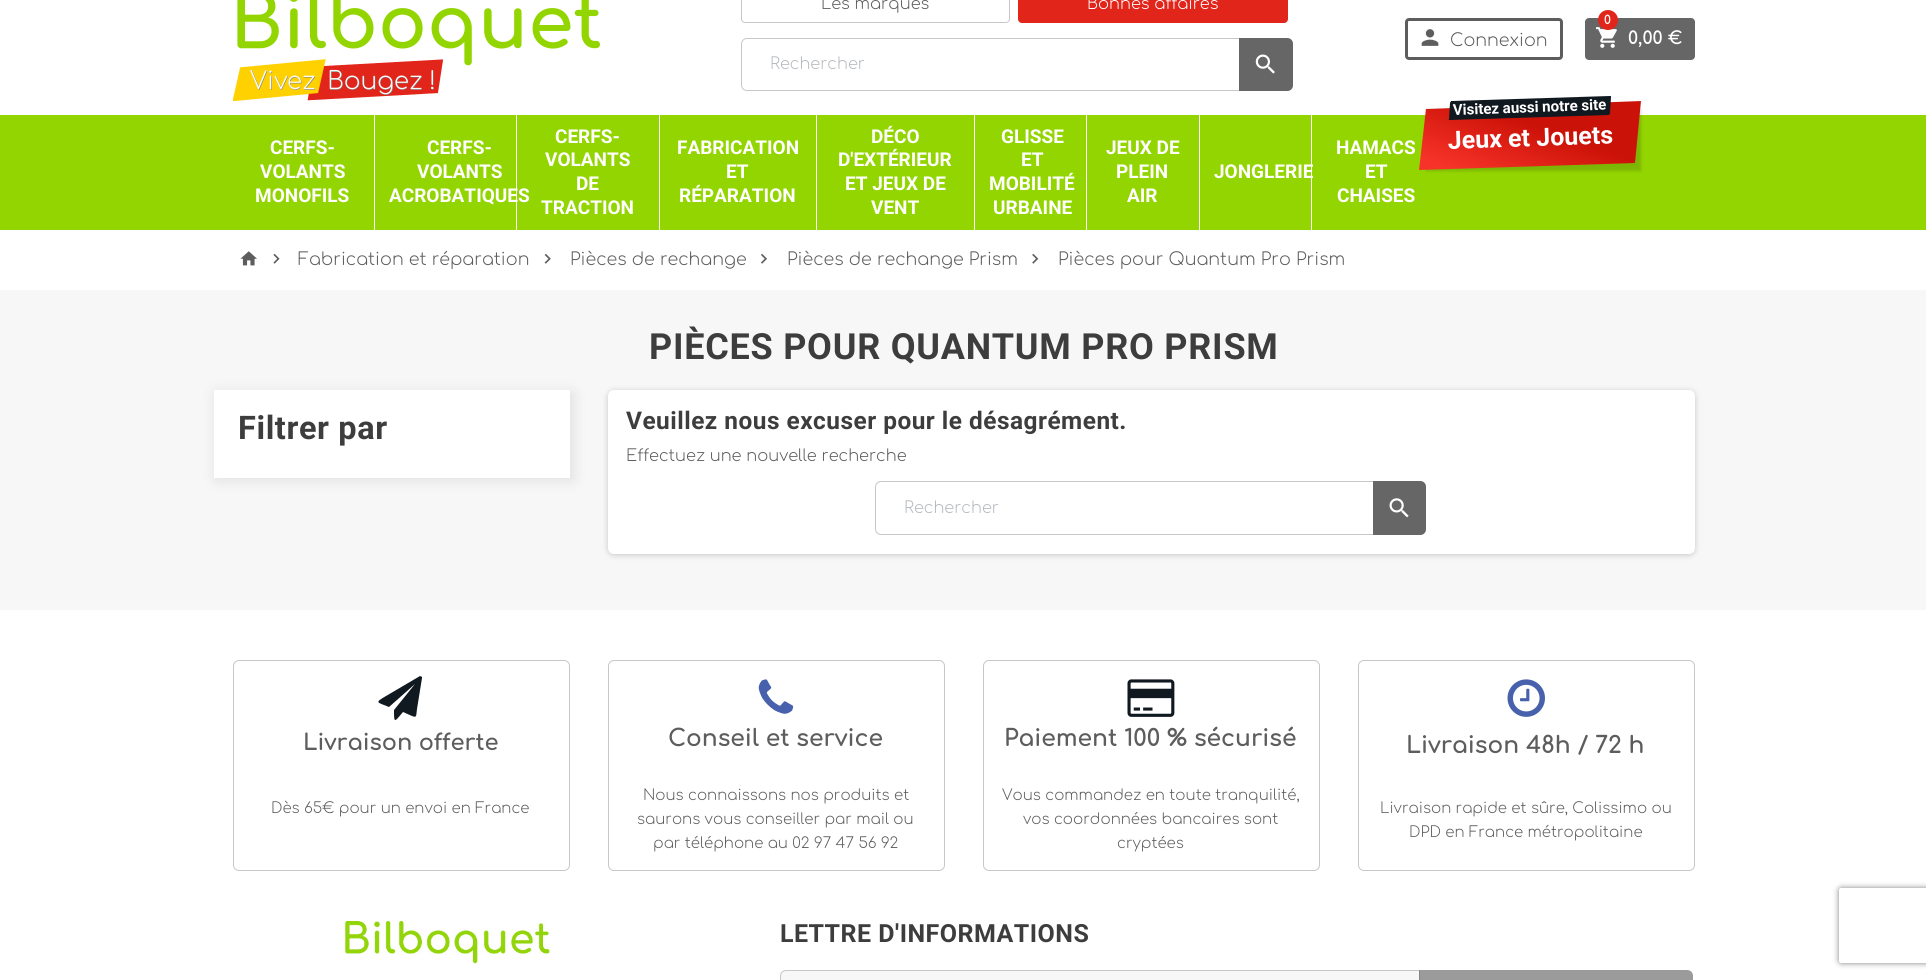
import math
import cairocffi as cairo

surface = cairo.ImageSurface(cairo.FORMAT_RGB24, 1926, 980)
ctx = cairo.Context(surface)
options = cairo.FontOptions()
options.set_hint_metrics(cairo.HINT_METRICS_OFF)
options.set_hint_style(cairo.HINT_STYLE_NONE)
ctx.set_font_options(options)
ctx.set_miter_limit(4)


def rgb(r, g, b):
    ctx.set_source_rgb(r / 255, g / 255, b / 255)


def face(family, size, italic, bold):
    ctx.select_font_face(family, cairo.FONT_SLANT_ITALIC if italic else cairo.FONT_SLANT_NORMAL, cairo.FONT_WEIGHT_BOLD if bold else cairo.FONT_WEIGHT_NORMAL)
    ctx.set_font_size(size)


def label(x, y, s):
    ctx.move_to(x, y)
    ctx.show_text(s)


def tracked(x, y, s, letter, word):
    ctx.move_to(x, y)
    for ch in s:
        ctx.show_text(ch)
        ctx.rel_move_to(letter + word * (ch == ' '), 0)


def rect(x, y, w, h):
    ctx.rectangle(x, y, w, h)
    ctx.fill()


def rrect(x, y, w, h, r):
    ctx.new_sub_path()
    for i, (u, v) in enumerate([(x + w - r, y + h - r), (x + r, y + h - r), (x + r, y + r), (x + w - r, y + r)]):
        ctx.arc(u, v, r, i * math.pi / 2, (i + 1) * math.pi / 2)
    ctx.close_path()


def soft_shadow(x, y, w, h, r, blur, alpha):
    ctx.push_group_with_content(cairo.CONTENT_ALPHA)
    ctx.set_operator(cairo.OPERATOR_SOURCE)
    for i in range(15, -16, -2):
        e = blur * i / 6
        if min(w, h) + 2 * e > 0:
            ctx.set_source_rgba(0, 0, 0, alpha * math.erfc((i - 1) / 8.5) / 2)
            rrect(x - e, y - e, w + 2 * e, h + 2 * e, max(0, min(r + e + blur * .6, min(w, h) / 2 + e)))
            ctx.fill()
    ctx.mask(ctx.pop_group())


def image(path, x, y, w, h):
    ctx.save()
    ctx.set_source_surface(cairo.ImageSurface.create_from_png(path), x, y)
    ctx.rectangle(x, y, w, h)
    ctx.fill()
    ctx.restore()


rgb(255, 255, 255)
ctx.paint()
image('image0.png', 233, 0, 367, 101)
rrect(741.5, -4.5, 268, 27, 3.5)
rgb(199, 199, 199)
ctx.set_line_width(1)
ctx.stroke()
face('Comfortaa Light', 16.25, 0, 0)
rgb(93, 93, 93)
label(821, 9, 'Les marques')
rgb(225, 37, 27)
rrect(1018.5, -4.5, 269, 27, 3.5)
ctx.fill_preserve()
ctx.stroke()
rgb(255, 255, 255)
label(1087, 9, 'Bonnes affaires')
rrect(1406.5, 19.5, 155, 39, 2.5)
rgb(93, 93, 93)
ctx.set_line_width(3)
ctx.stroke()
image('image1.png', 1421, 29, 18, 17)
face('Comfortaa Light', 17.5, 0, 0)
label(1450, 46, 'Connexion')
rgb(102, 102, 102)
rrect(1585, 18, 110, 42, 4)
ctx.fill()
image('image2.png', 1596, 27, 21, 21)
rgb(225, 37, 27)
ctx.arc(1608, 20, 10, 0, 2 * math.pi)
ctx.fill()
face('Comfortaa', 12, 0, 1)
rgb(255, 255, 255)
label(1604, 24, '0')
face('Comfortaa', 17.5, 0, 1)
label(1628, 44, '0,00 €')
rrect(741.5, 38.5, 551, 52, 5.5)
rgb(199, 199, 199)
ctx.set_line_width(1)
ctx.stroke()
face('Comfortaa Light', 16.25, 0, 0)
rgb(182, 186, 190)
label(770, 69, 'Rechercher')
rgb(102, 102, 102)
ctx.new_path()
ctx.move_to(1239, 38)
ctx.line_to(1287, 38)
ctx.curve_to(1290.5, 38, 1293, 40.5, 1293, 44)
ctx.line_to(1293, 85)
ctx.curve_to(1293, 88.5, 1290.5, 91, 1287, 91)
ctx.line_to(1239, 91)
ctx.close_path()
ctx.fill()
image('image3.png', 1255, 54, 20, 20)
rgb(147, 213, 0)
rect(0, 115, 1926, 115)
rgb(255, 255, 255)
rect(374, 115, 1, 115)
face('Roboto', 19, 0, 1)
label(270, 154, 'CERFS-')
label(260, 178, 'VOLANTS')
label(255, 202, 'MONOFILS')
rect(516, 115, 1, 115)
label(427, 154, 'CERFS-')
label(417, 178, 'VOLANTS')
label(389, 202, 'ACROBATIQUES')
rect(659, 115, 1, 115)
label(555, 143, 'CERFS-')
label(545, 166, 'VOLANTS')
label(576, 190, 'DE')
label(541, 214, 'TRACTION')
rect(816, 115, 1, 115)
label(677, 154, 'FABRICATION')
label(726, 178, 'ET')
label(679, 202, 'RÉPARATION')
rect(974, 115, 1, 115)
label(871, 143, 'DÉCO')
label(838, 166, 'D\'EXTÉRIEUR')
label(845, 190, 'ET JEUX DE')
label(871, 214, 'VENT')
rect(1086, 115, 1, 115)
label(1001, 143, 'GLISSE')
label(1021, 166, 'ET')
label(989, 190, 'MOBILITÉ')
label(993, 214, 'URBAINE')
rect(1199, 115, 1, 115)
label(1106, 154, 'JEUX DE')
label(1116, 178, 'PLEIN')
label(1127, 202, 'AIR')
rect(1311, 115, 1, 115)
label(1214, 178, 'JONGLERIE')
label(1336, 154, 'HAMACS')
label(1365, 178, 'ET')
label(1337, 202, 'CHAISES')
rgb(16, 24, 32)
soft_shadow(1426, 110, 215, 61, 0, 1.5, 0.17)
gradient = cairo.LinearGradient(1511, 190, 1550, 81)
gradient.add_color_stop_rgba(0, 0.969, 0.2, 0.161, 1)
gradient.add_color_stop_rgba(0.6, 0.796, 0.071, 0.031, 1)
ctx.set_source(gradient)
ctx.new_path()
ctx.move_to(1426, 109)
ctx.line_to(1641, 101)
ctx.line_to(1635, 163)
ctx.line_to(1419, 170)
ctx.close_path()
ctx.fill()
rgb(16, 24, 32)
ctx.new_path()
ctx.move_to(1451, 101)
ctx.line_to(1610, 96)
ctx.curve_to(1611, 96, 1611, 96, 1611, 97)
ctx.line_to(1610, 113)
ctx.curve_to(1610, 114, 1609, 115, 1608, 115)
ctx.line_to(1450, 120)
ctx.curve_to(1449, 120, 1448, 120, 1449, 119)
ctx.line_to(1450, 103)
ctx.curve_to(1450, 102, 1451, 102, 1451, 101)
ctx.close_path()
ctx.fill()
face('Roboto', 15.1, 0, 1)
rgb(255, 255, 255)
ctx.save()
ctx.translate(1453, 115)
ctx.rotate(-2 * math.pi / 180)
tracked(0, 0, 'Visitez aussi notre site', -0.05, 0)
ctx.restore()
face('Roboto', 25, 0, 1)
ctx.save()
ctx.translate(1448, 149)
ctx.rotate(-2 * math.pi / 180)
label(0, 0, 'Jeux et Jouets')
ctx.restore()
image('image4.png', 240, 251, 17, 15)
image('image5.png', 273, 253, 7, 11)
face('Comfortaa Light', 17.5, 0, 0)
rgb(93, 93, 93)
label(298, 265, 'Fabrication et réparation')
image('image6.png', 544, 253, 7, 11)
label(570, 265, 'Pièces de rechange')
image('image7.png', 761, 253, 6, 11)
label(787, 265, 'Pièces de rechange Prism')
image('image8.png', 1032, 253, 7, 11)
label(1058, 265, 'Pièces pour Quantum Pro Prism')
rgb(247, 247, 247)
rect(0, 290, 1926, 320)
face('Roboto', 36, 0, 1)
rgb(61, 61, 61)
tracked(649, 359, 'PIÈCES POUR QUANTUM PRO PRISM', 0.75, 0)
rgb(0, 0, 0)
soft_shadow(216, 393, 357, 87, 0, 7, 0.1)
rgb(255, 255, 255)
rect(214, 390, 356, 88)
face('Roboto', 32.5, 0, 1)
rgb(61, 61, 61)
tracked(238, 439, 'Filtrer par', 0.6, 0)
rgb(0, 0, 0)
soft_shadow(608, 391, 1087, 164, 6, 3, 0.2)
rgb(255, 255, 255)
rrect(608, 390, 1087, 164, 6)
ctx.fill()
face('Roboto', 24.4, 0, 1)
rgb(61, 61, 61)
tracked(626, 429, 'Veuillez nous excuser pour le désagrément.', 0.5, 0)
face('Comfortaa Light', 16.25, 0, 0)
rgb(93, 93, 93)
label(626, 461, 'Effectuez une nouvelle recherche')
rrect(875.5, 481.5, 550, 53, 5.5)
rgb(199, 199, 199)
ctx.stroke()
rgb(182, 186, 190)
label(904, 513, 'Rechercher')
rgb(102, 102, 102)
ctx.new_path()
ctx.move_to(1373, 481)
ctx.line_to(1420, 481)
ctx.curve_to(1423.5, 481, 1426, 483.5, 1426, 487)
ctx.line_to(1426, 529)
ctx.curve_to(1426, 532.5, 1423.5, 535, 1420, 535)
ctx.line_to(1373, 535)
ctx.close_path()
ctx.fill()
image('image9.png', 1389, 498, 20, 20)
rrect(233.5, 660.5, 336, 210, 5.5)
rgb(199, 199, 199)
ctx.stroke()
rgb(16, 24, 32)
ctx.new_path()
ctx.move_to(422, 677)
ctx.line_to(422, 678)
ctx.line_to(417, 709)
ctx.curve_to(416, 716, 417, 718, 412, 716)
ctx.line_to(403, 712)
ctx.curve_to(394, 723, 394, 723, 394, 710)
ctx.line_to(415, 684)
ctx.line_to(389, 707)
ctx.curve_to(377, 702, 374, 703, 386, 696)
ctx.line_to(420, 676)
ctx.close_path()
ctx.fill()
face('Comfortaa', 22.5, 0, 1)
rgb(93, 93, 93)
label(303, 750, 'Livraison offerte')
face('Comfortaa Light', 15, 0, 0)
label(271, 813, 'Dès 65€ pour un envoi en France')
rrect(608.5, 660.5, 336, 210, 5.5)
rgb(199, 199, 199)
ctx.stroke()
image('image10.png', 758, 679, 36, 35)
face('Comfortaa', 23.3, 0, 1)
rgb(93, 93, 93)
label(668, 746, 'Conseil et service')
face('Comfortaa Light', 15, 0, 0)
label(643, 800, 'Nous connaissons nos produits et')
label(637, 824, 'saurons vous conseiller par mail ou')
label(653, 848, 'par téléphone au 02 97 47 56 92')
rrect(983.5, 660.5, 336, 210, 5.5)
rgb(199, 199, 199)
ctx.stroke()
image('image11.png', 1127, 679, 48, 38)
face('Comfortaa', 23.3, 0, 1)
rgb(93, 93, 93)
label(1004, 746, 'Paiement 100 % sécurisé')
face('Comfortaa Light', 15, 0, 0)
label(1002, 800, 'Vous commandez en toute tranquilité,')
label(1023, 824, 'vos coordonnées bancaires sont')
label(1117, 848, 'cryptées')
rrect(1358.5, 660.5, 336, 210, 5.5)
rgb(199, 199, 199)
ctx.stroke()
image('image12.png', 1507, 679, 38, 38)
face('Comfortaa', 23.3, 0, 1)
rgb(93, 93, 93)
label(1406, 753, 'Livraison 48h / 72 h')
face('Comfortaa Light', 15, 0, 0)
label(1380, 813, 'Livraison rapide et sûre, Colissimo ou')
label(1409, 837, 'DPD en France métropolitaine')
image('image13.png', 343, 920, 207, 44)
ctx.save()
ctx.set_fill_rule(cairo.FILL_RULE_EVEN_ODD)
ctx.new_path()
ctx.move_to(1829, 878)
ctx.line_to(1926, 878)
ctx.line_to(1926, 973)
ctx.line_to(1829, 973)
ctx.close_path()
ctx.move_to(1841.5, 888)
ctx.line_to(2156.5, 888)
ctx.curve_to(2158, 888, 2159, 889, 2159, 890.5)
ctx.line_to(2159, 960.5)
ctx.curve_to(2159, 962, 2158, 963, 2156.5, 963)
ctx.line_to(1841.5, 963)
ctx.curve_to(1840, 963, 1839, 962, 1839, 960.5)
ctx.line_to(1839, 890.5)
ctx.curve_to(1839, 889, 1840, 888, 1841.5, 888)
ctx.close_path()
ctx.clip()
rgb(128, 128, 128)
soft_shadow(1839, 888, 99, 75, 2.5, 3, 1)
ctx.restore()
rgb(247, 247, 247)
ctx.new_path()
ctx.move_to(786, 970.5)
ctx.line_to(1419.5, 970.5)
ctx.line_to(1419.5, 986.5)
ctx.line_to(786, 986.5)
ctx.curve_to(783, 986.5, 780.5, 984, 780.5, 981)
ctx.line_to(780.5, 976)
ctx.curve_to(780.5, 973, 783, 970.5, 786, 970.5)
ctx.close_path()
ctx.fill_preserve()
rgb(199, 199, 199)
ctx.stroke()
ctx.set_source_rgba(0.4, 0.4, 0.4, 0.65)
ctx.new_path()
ctx.move_to(1419, 970)
ctx.line_to(1687, 970)
ctx.curve_to(1690.5, 970, 1693, 972.5, 1693, 976)
ctx.line_to(1693, 980)
ctx.curve_to(1693, 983.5, 1690.5, 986, 1687, 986)
ctx.line_to(1419, 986)
ctx.close_path()
ctx.fill()
face('Roboto', 25, 0, 1)
rgb(61, 61, 61)
tracked(780, 942, 'LETTRE D\'INFORMATIONS', 0.5, 0)
surface.write_to_png('render.png')
